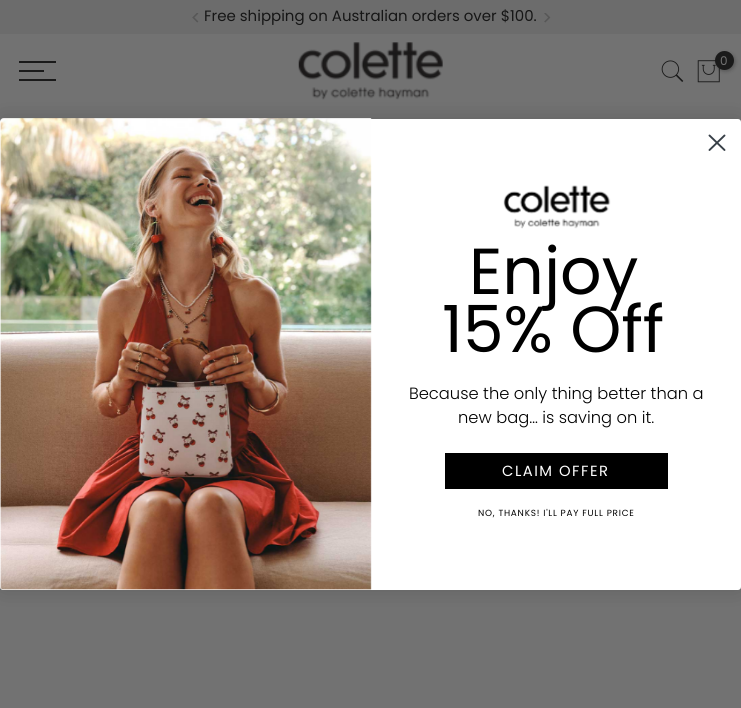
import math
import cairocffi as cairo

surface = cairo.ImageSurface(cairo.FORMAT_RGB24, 741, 708)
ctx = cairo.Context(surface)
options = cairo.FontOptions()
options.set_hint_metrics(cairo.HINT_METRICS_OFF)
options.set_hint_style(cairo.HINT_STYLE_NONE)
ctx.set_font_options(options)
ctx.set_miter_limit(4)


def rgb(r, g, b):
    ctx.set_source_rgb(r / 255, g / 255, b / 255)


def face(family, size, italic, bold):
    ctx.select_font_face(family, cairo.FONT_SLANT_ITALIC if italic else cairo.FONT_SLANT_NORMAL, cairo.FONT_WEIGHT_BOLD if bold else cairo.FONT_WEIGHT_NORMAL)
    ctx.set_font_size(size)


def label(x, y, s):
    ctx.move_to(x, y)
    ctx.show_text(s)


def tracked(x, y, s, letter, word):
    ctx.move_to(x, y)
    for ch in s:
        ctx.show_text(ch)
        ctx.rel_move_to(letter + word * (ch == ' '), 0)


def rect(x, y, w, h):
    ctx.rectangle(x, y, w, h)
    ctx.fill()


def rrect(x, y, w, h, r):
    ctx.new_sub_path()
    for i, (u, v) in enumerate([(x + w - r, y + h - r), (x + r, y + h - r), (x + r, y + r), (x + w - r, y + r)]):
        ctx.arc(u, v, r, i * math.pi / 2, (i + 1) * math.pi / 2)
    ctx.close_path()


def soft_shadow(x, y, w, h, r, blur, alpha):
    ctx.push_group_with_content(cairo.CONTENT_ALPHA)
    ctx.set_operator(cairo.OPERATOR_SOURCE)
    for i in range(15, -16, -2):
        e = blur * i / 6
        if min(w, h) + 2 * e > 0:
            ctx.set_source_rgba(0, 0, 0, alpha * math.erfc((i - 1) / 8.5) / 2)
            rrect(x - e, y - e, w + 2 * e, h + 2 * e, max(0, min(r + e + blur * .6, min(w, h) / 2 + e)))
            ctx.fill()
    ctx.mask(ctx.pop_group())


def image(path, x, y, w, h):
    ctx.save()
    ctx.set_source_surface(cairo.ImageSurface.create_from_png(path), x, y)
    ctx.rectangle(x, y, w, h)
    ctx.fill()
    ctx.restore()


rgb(114, 114, 114)
ctx.paint()
rgb(108, 108, 108)
rect(0, 0, 741, 34)
image('image0.png', 192, 13, 7, 10)
face('Poppins', 15, 0, 0)
rgb(22, 22, 22)
label(204, 21, 'Free shipping on Australian orders over $100.')
image('image1.png', 544, 13, 7, 10)
image('image2.png', 298, 42, 145, 58)
image('image3.png', 661, 60, 23, 22)
image('image4.png', 697, 60, 23, 23)
rgb(12, 12, 12)
soft_shadow(716, 53, 19, 18, 9, 2, 0.3)
rgb(26, 26, 26)
ctx.arc(724.5, 60.5, 9.5, 0, 2 * math.pi)
ctx.fill()
face('Poppins', 12, 0, 0)
rgb(114, 114, 114)
label(720, 65, '0')
rgb(26, 26, 26)
rect(19, 61, 37, 2)
rect(19, 70, 25, 2)
rect(19, 79, 37, 2)
rgb(0, 0, 0)
soft_shadow(0, 119, 741, 471, 3, 11, 0.15)
rgb(255, 255, 255)
rrect(0, 119, 741, 471, 3)
ctx.fill()
ctx.new_path()
ctx.move_to(709.5, 135.5)
ctx.line_to(724.5, 150)
ctx.move_to(709.5, 150)
ctx.line_to(724.5, 135.5)
ctx.close_path()
rgb(55, 63, 71)
ctx.set_line_width(1.9)
ctx.set_line_cap(cairo.LINE_CAP_ROUND)
ctx.set_line_join(cairo.LINE_JOIN_ROUND)
ctx.stroke()
image('image5.png', 0, 118, 372, 472)
image('image6.png', 503, 185, 108, 44)
face('Poppins', 65, 0, 0)
rgb(0, 0, 0)
label(469, 294, 'Enjoy')
label(442, 352, '15% Off')
face('Poppins Light', 16.3, 0, 0)
label(409, 399, 'Because the only thing better than a')
label(458, 423, 'new bag… is saving on it.')
rect(445, 453, 223, 36)
face('Poppins', 14.75, 0, 0)
rgb(255, 255, 255)
tracked(502, 476, 'CLAIM OFFER', 1.5, 0)
face('Poppins', 8.9, 0, 0)
rgb(0, 0, 0)
tracked(478, 516, 'NO, THANKS! I\'LL PAY FULL PRICE', 0.75, 0)
surface.write_to_png('render.png')
